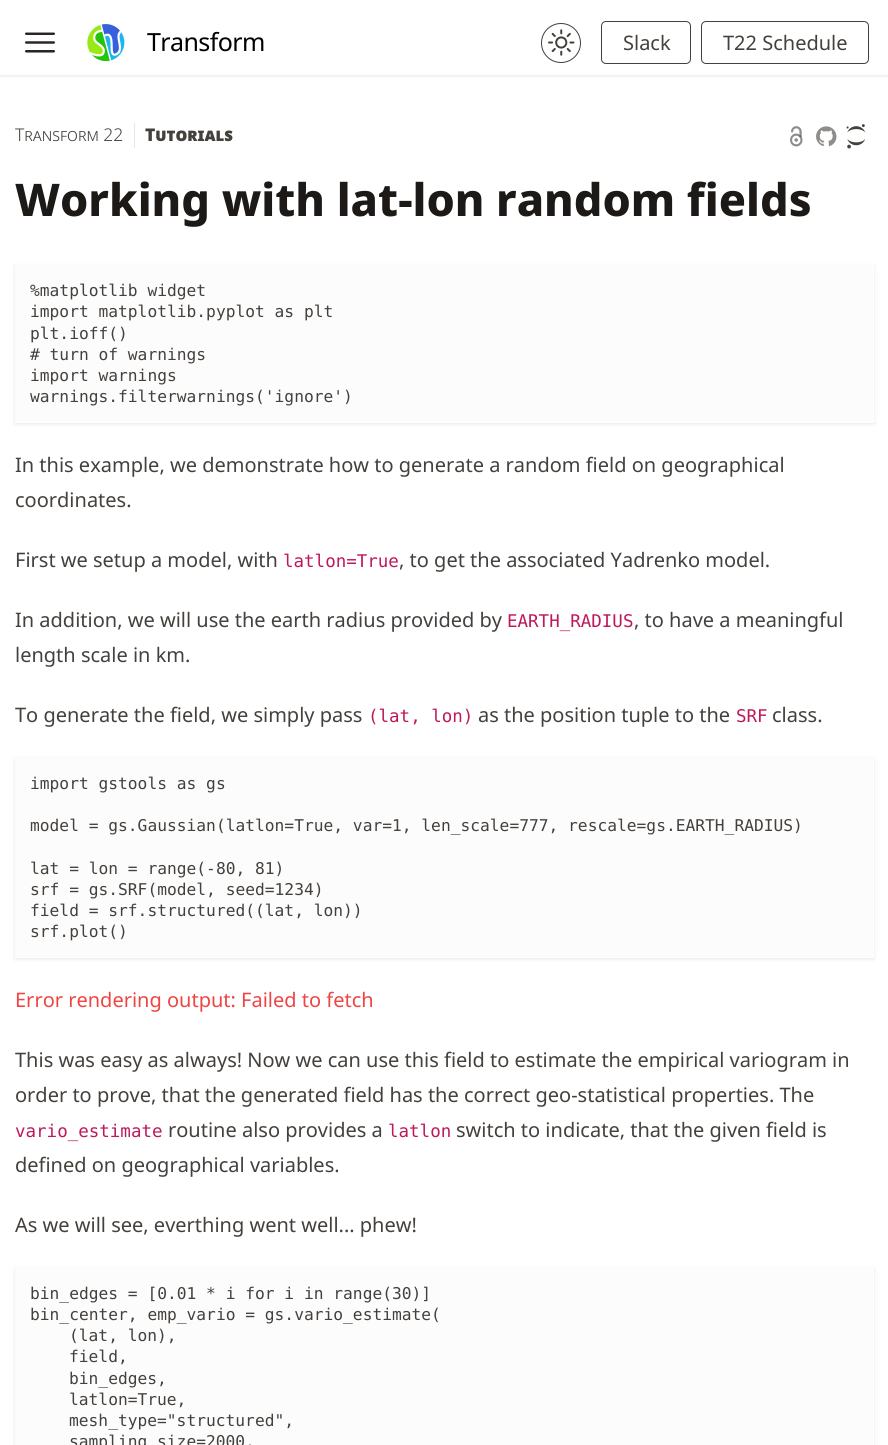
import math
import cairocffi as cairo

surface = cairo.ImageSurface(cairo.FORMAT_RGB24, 888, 1445)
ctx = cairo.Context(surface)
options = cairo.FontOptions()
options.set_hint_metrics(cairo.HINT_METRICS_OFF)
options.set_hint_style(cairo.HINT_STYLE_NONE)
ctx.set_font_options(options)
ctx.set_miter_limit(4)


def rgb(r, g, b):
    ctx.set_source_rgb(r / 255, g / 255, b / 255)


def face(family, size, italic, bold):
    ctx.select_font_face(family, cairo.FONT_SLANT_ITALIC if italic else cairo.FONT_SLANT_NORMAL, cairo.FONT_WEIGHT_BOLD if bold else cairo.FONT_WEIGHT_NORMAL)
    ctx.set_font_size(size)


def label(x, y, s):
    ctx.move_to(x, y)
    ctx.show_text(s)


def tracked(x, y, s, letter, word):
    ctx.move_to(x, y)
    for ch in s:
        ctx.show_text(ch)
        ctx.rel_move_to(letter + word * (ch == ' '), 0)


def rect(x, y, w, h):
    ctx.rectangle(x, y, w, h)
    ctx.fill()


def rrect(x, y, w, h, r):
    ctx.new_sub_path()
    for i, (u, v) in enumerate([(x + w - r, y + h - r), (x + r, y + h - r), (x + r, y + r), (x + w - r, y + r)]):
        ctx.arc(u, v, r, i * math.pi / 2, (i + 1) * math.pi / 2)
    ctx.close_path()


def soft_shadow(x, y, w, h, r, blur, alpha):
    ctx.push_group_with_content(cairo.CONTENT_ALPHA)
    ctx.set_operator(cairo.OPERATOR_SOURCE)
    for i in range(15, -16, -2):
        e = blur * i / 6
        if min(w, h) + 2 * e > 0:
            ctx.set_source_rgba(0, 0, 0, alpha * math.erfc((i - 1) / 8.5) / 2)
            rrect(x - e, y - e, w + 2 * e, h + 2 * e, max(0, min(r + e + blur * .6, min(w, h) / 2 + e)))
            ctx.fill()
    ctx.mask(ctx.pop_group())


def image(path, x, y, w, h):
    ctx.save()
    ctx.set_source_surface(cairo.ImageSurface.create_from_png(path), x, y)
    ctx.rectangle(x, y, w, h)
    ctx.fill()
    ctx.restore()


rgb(255, 255, 255)
ctx.paint()
ctx.save()
ctx.rectangle(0, 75, 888, 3)
ctx.clip()
rgb(0, 0, 0)
soft_shadow(0, 1, 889, 75, 0, 2, 0.1)
ctx.restore()
image('image0.png', 25, 32, 30, 21)
image('image1.png', 87, 24, 38, 38)
face('Noto Sans', 25, 0, 0)
rgb(0, 0, 0)
tracked(147, 51, 'Transform', -0.6, 0)
ctx.new_path()
ctx.arc(561, 43, 19.5, 0, 2 * math.pi)
rgb(68, 64, 60)
ctx.set_line_width(1)
ctx.stroke()
image('image2.png', 548, 29, 27, 27)
rrect(601.5, 21.5, 89, 42, 4.5)
ctx.stroke()
face('Noto Sans', 20, 0, 0)
label(623, 50, 'Slack')
rrect(701.5, 21.5, 167, 42, 4.5)
ctx.stroke()
label(723, 50, 'T22 Schedule')
rgb(229, 231, 235)
rect(134, 123, 1, 25)
face('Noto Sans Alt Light', 17.5, 0, 0)
rgb(68, 64, 60)
label(15, 141, 'Transform 22')
face('Noto Sans Alt Black', 17.5, 0, 0)
label(145, 141, 'Tutorials')
image('image3.png', 790, 126, 13, 21)
image('image4.png', 816, 126, 21, 21)
image('image5.png', 846, 124, 20, 25)
face('Noto Sans ExtraBold', 45, 0, 0)
rgb(28, 25, 23)
label(15, 216, 'Working with lat-lon random fields')
ctx.save()
ctx.set_fill_rule(cairo.FILL_RULE_EVEN_ODD)
ctx.new_path()
ctx.move_to(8, 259)
ctx.line_to(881, 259)
ctx.line_to(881, 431)
ctx.line_to(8, 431)
ctx.close_path()
ctx.move_to(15, 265)
ctx.line_to(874, 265)
ctx.line_to(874, 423)
ctx.line_to(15, 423)
ctx.close_path()
ctx.clip()
rgb(0, 0, 0)
soft_shadow(15, 266, 859, 158, 0, 2, 0.1)
ctx.restore()
ctx.set_source_rgba(0.906, 0.898, 0.894, 0.1)
rect(15, 265, 858, 157)
face('DejaVu Sans Mono', 16.25, 0, 0)
rgb(68, 64, 60)
label(30, 296, '%matplotlib widget')
label(30, 317, 'import matplotlib.pyplot as plt')
label(30, 339, 'plt.ioff()')
label(30, 360, '# turn of warnings')
label(30, 381, 'import warnings')
label(30, 402, 'warnings.filterwarnings(\'ignore\')')
face('Noto Sans', 20, 0, 0)
label(15, 472, 'In this example, we demonstrate how to generate a random field on geographical')
label(15, 507, 'coordinates.')
label(15, 567, 'First we setup a model, with')
face('DejaVu Sans Mono', 17.5, 0, 0)
rgb(190, 24, 93)
label(283, 567, 'latlon=True')
face('Noto Sans', 20, 0, 0)
rgb(68, 64, 60)
label(399, 567, ', to get the associated Yadrenko model.')
label(15, 627, 'In addition, we will use the earth radius provided by')
face('DejaVu Sans Mono', 17.5, 0, 0)
rgb(190, 24, 93)
label(507, 627, 'EARTH_RADIUS')
face('Noto Sans', 20, 0, 0)
rgb(68, 64, 60)
label(634, 627, ', to have a meaningful')
label(15, 662, 'length scale in km.')
label(15, 722, 'To generate the field, we simply pass')
face('DejaVu Sans Mono', 17.5, 0, 0)
rgb(190, 24, 93)
label(368, 722, '(lat, lon)')
face('Noto Sans', 20, 0, 0)
rgb(68, 64, 60)
label(478, 722, 'as the position tuple to the')
face('DejaVu Sans Mono', 17.5, 0, 0)
rgb(190, 24, 93)
label(736, 722, 'SRF')
face('Noto Sans', 20, 0, 0)
rgb(68, 64, 60)
label(772, 722, 'class.')
ctx.save()
ctx.set_fill_rule(cairo.FILL_RULE_EVEN_ODD)
ctx.new_path()
ctx.move_to(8, 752)
ctx.line_to(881, 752)
ctx.line_to(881, 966)
ctx.line_to(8, 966)
ctx.close_path()
ctx.move_to(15, 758)
ctx.line_to(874, 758)
ctx.line_to(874, 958)
ctx.line_to(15, 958)
ctx.close_path()
ctx.clip()
rgb(0, 0, 0)
soft_shadow(15, 759, 859, 200, 0, 2, 0.1)
ctx.restore()
ctx.set_source_rgba(0.906, 0.898, 0.894, 0.1)
rect(15, 758, 858, 199)
face('DejaVu Sans Mono', 16.25, 0, 0)
rgb(68, 64, 60)
label(30, 789, 'import gstools as gs')
label(30, 831, 'model = gs.Gaussian(latlon=True, var=1, len_scale=777, rescale=gs.EARTH_RADIUS)')
label(30, 874, 'lat = lon = range(-80, 81)')
label(30, 895, 'srf = gs.SRF(model, seed=1234)')
label(30, 916, 'field = srf.structured((lat, lon))')
label(30, 937, 'srf.plot()')
face('Noto Sans', 20, 0, 0)
rgb(239, 68, 68)
label(15, 1007, 'Error rendering output: Failed to fetch')
rgb(68, 64, 60)
label(15, 1067, 'This was easy as always! Now we can use this field to estimate the empirical variogram in')
label(15, 1102, 'order to prove, that the generated field has the correct geo-statistical properties. The')
face('DejaVu Sans Mono', 17.5, 0, 0)
rgb(190, 24, 93)
label(15, 1137, 'vario_estimate')
face('Noto Sans', 20, 0, 0)
rgb(68, 64, 60)
label(168, 1137, 'routine also provides a')
face('DejaVu Sans Mono', 17.5, 0, 0)
rgb(190, 24, 93)
label(388, 1137, 'latlon')
face('Noto Sans', 20, 0, 0)
rgb(68, 64, 60)
label(456, 1137, 'switch to indicate, that the given field is')
label(15, 1172, 'defined on geographical variables.')
label(15, 1232, 'As we will see, everthing went well... phew!')
ctx.save()
ctx.set_fill_rule(cairo.FILL_RULE_EVEN_ODD)
ctx.new_path()
ctx.move_to(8, 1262)
ctx.line_to(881, 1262)
ctx.line_to(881, 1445)
ctx.line_to(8, 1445)
ctx.close_path()
ctx.move_to(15, 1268)
ctx.line_to(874, 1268)
ctx.line_to(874, 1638)
ctx.line_to(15, 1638)
ctx.close_path()
ctx.clip()
rgb(0, 0, 0)
soft_shadow(15, 1269, 859, 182, 0, 2, 0.1)
ctx.restore()
ctx.set_source_rgba(0.906, 0.898, 0.894, 0.1)
rect(15, 1268, 858, 177)
face('DejaVu Sans Mono', 16.25, 0, 0)
rgb(68, 64, 60)
label(30, 1299, 'bin_edges = [0.01 * i for i in range(30)]')
label(30, 1320, 'bin_center, emp_vario = gs.vario_estimate(')
label(69, 1341, '(lat, lon),')
label(69, 1362, 'field,')
label(69, 1384, 'bin_edges,')
label(69, 1405, 'latlon=True,')
label(69, 1426, 'mesh_type="structured",')
label(69, 1447, 'sampling_size=2000,')
surface.write_to_png('render.png')
